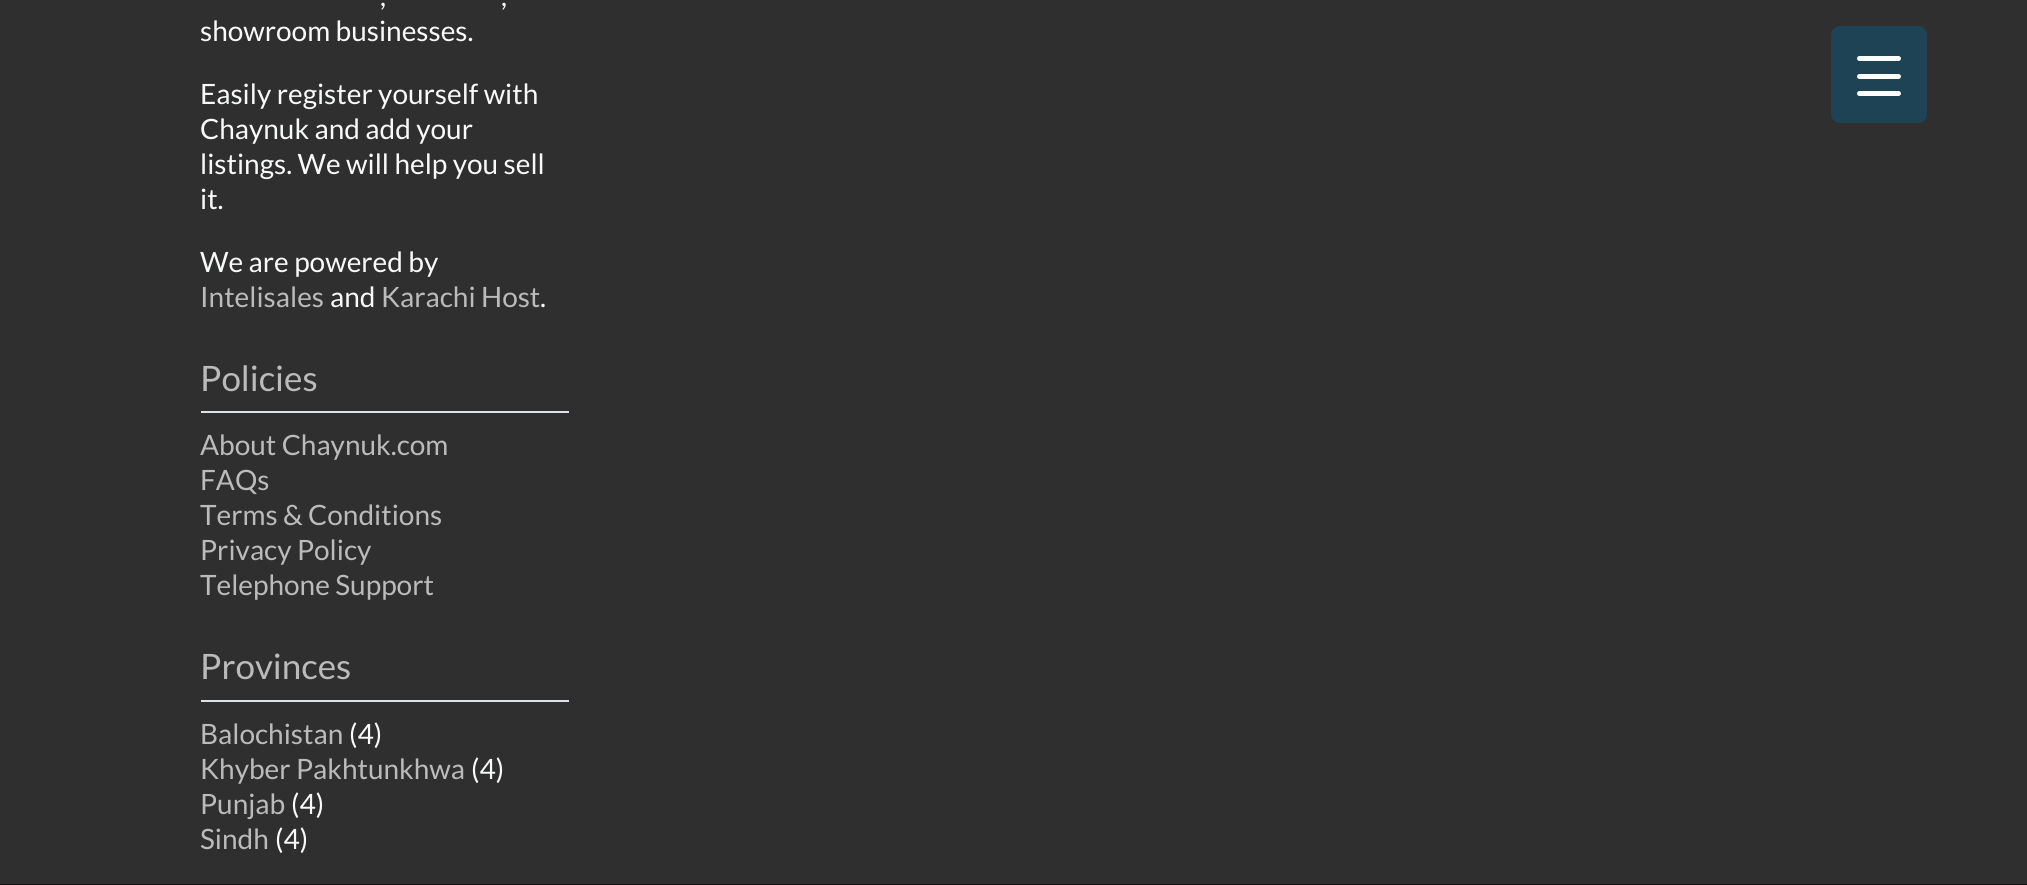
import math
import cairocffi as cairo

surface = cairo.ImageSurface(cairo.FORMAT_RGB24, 2027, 885)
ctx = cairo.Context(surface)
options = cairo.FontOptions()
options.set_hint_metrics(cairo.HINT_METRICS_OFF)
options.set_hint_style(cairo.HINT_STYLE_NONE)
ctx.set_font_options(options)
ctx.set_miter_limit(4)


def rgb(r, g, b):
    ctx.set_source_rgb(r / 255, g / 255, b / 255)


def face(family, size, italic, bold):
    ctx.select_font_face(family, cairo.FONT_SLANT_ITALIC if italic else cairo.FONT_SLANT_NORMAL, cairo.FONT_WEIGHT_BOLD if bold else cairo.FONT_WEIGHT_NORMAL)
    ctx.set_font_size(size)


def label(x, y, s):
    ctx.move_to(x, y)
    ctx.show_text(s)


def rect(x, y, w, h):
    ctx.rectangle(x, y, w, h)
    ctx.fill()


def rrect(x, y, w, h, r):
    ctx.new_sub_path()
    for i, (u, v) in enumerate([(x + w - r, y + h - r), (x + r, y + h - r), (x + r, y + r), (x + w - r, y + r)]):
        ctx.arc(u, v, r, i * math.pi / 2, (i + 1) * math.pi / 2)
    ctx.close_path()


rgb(47, 47, 47)
ctx.paint()
face('Lato', 28, 0, 0)
rgb(248, 249, 250)
label(380, 6, ',')
label(501, 6, ',')
label(200, 41, 'showroom businesses.')
label(200, 104, 'Easily register yourself with')
label(200, 139, 'Chaynuk and add your')
label(200, 174, 'listings. We will help you sell')
label(200, 209, 'it.')
label(200, 272, 'We are powered by')
rgb(187, 187, 187)
label(200, 307, 'Intelisales')
rgb(248, 249, 250)
label(330, 307, 'and')
rgb(187, 187, 187)
label(381, 307, 'Karachi Host')
rgb(248, 249, 250)
label(540, 307, '.')
rgb(222, 226, 230)
rect(201, 411, 368, 2)
face('Lato', 35, 0, 0)
rgb(187, 187, 187)
label(200, 391, 'Policies')
face('Lato', 28, 0, 0)
label(200, 455, 'About Chaynuk.com')
label(200, 490, 'FAQs')
label(200, 525, 'Terms & Conditions')
label(200, 560, 'Privacy Policy')
label(200, 595, 'Telephone Support')
rgb(222, 226, 230)
rect(201, 700, 368, 2)
face('Lato', 35, 0, 0)
rgb(187, 187, 187)
label(200, 679, 'Provinces')
face('Lato', 28, 0, 0)
label(200, 744, 'Balochistan')
rgb(248, 249, 250)
label(349, 744, '(4)')
rgb(187, 187, 187)
label(200, 779, 'Khyber Pakhtunkhwa')
rgb(248, 249, 250)
label(471, 779, '(4)')
rgb(187, 187, 187)
label(200, 814, 'Punjab')
rgb(248, 249, 250)
label(291, 814, '(4)')
rgb(187, 187, 187)
label(200, 849, 'Sindh')
rgb(248, 249, 250)
label(275, 849, '(4)')
rgb(21, 21, 21)
rect(0, 884, 2027, 1)
rgb(29, 67, 84)
rrect(1831, 26, 96, 97, 9)
ctx.fill()
rgb(255, 255, 255)
rrect(1857, 74, 44, 5, 2.5)
ctx.fill()
rrect(1857, 56, 44, 5, 2.5)
ctx.fill()
rrect(1857, 91, 44, 5, 2.5)
ctx.fill()
surface.write_to_png('render.png')
